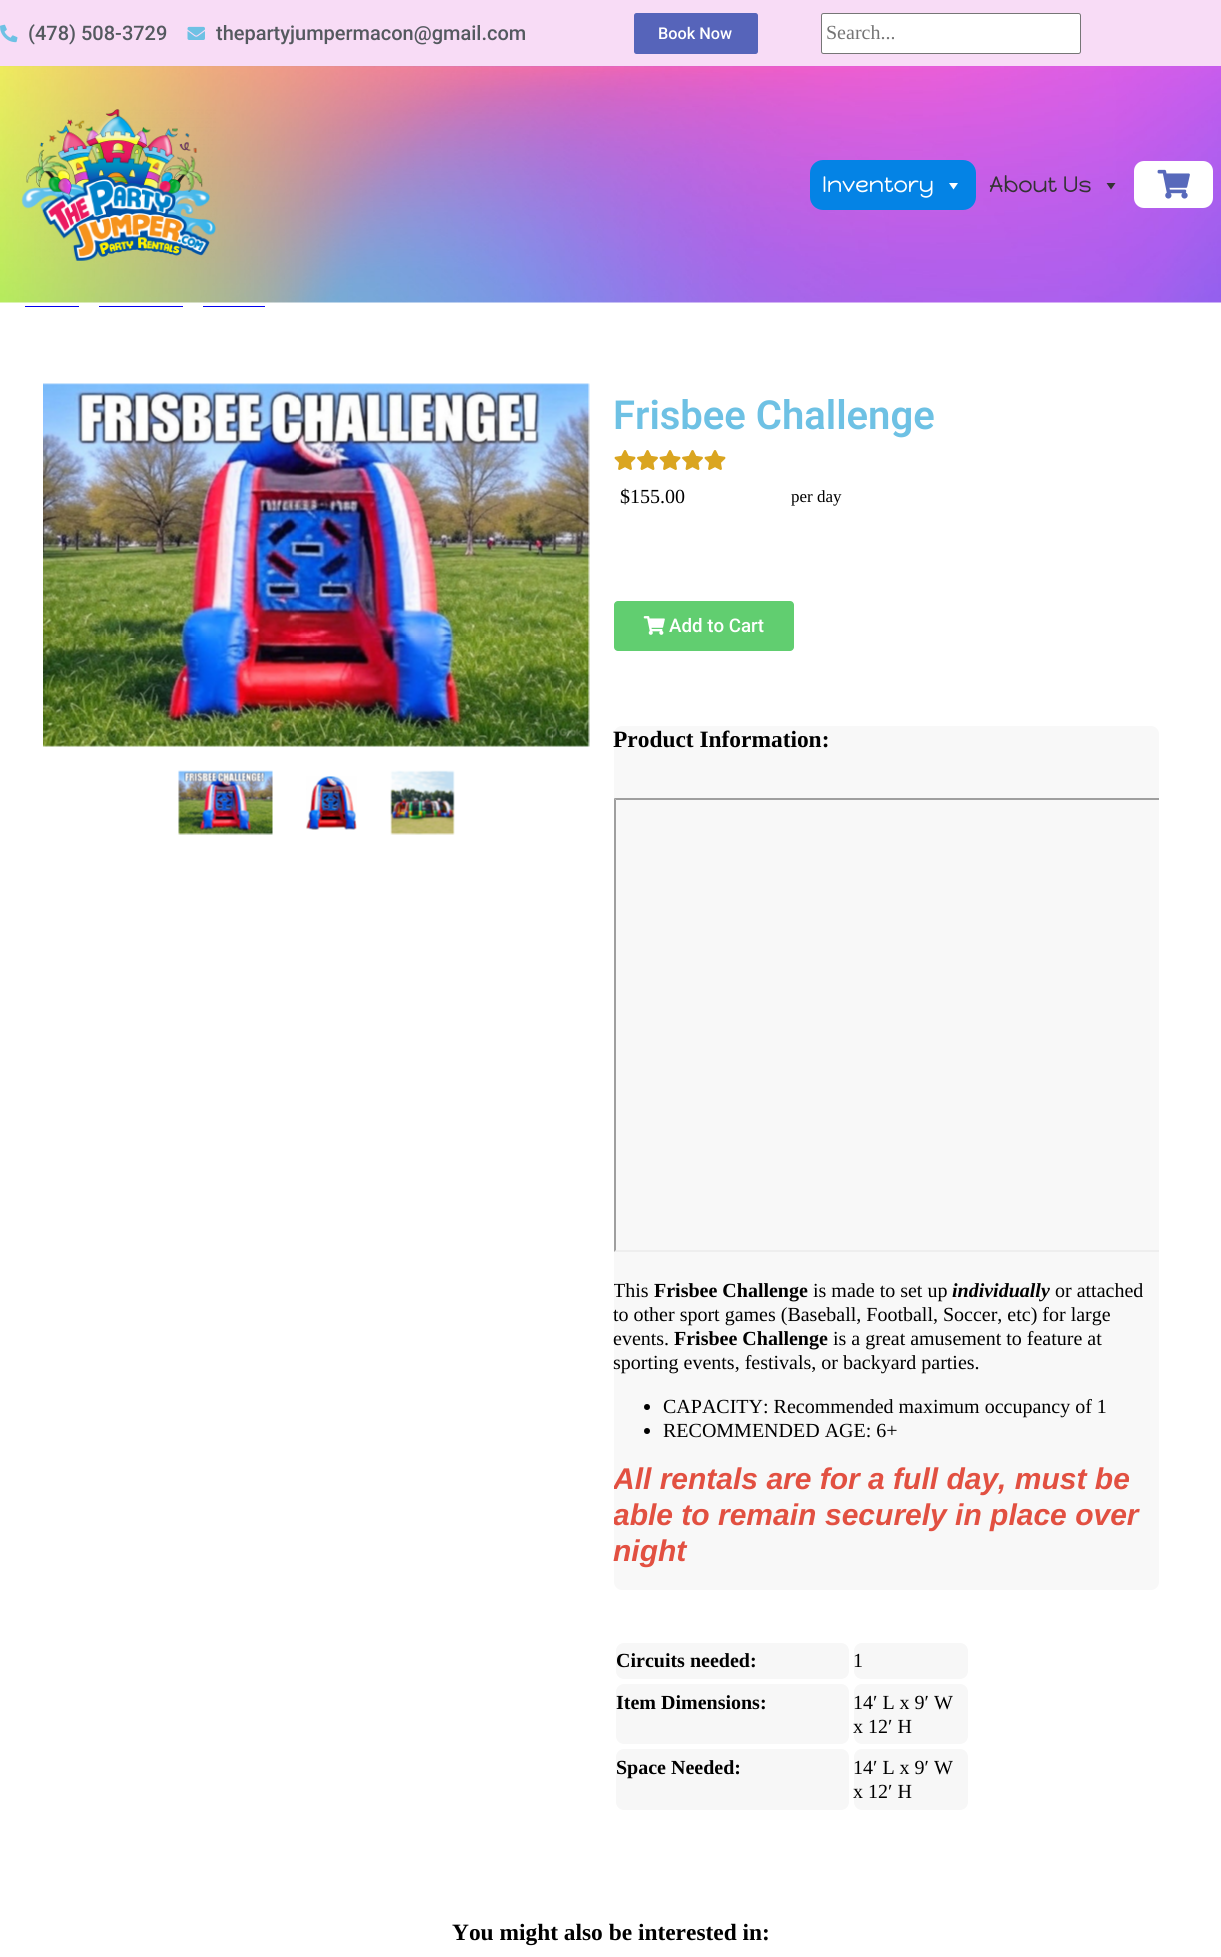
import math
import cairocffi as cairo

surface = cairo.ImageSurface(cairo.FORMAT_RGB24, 1221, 1957)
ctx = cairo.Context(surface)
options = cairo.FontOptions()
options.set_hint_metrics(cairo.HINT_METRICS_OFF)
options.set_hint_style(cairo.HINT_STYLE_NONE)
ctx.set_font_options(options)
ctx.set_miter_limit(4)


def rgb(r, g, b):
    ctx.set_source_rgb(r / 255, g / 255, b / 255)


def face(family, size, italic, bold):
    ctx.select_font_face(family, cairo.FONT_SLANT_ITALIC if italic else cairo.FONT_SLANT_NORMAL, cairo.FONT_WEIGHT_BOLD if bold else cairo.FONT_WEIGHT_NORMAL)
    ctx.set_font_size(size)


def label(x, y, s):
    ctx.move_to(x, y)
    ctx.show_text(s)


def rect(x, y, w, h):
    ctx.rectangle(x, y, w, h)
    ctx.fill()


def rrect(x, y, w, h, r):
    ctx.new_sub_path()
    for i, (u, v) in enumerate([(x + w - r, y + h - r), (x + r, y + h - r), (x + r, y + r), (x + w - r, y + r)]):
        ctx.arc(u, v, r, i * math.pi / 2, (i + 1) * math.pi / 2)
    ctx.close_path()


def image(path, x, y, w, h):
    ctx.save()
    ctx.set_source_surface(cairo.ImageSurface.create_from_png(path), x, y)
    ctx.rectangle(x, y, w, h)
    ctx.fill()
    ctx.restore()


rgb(255, 255, 255)
ctx.paint()
rgb(248, 220, 246)
rect(0, 0, 1221, 66)
image('image0.png', 0, 24, 18, 19)
face('Roboto Medium', 20, 0, 0)
rgb(84, 89, 95)
label(28, 40, '(478) 508-3729')
image('image1.png', 187, 26, 18, 14)
label(216, 40, 'thepartyjumpermacon@gmail.com')
rgb(86, 100, 186)
rrect(634, 13, 124, 41, 2.5)
ctx.fill()
face('Roboto Medium', 16.25, 0, 0)
rgb(255, 255, 255)
label(658, 39, 'Book Now')
rrect(821.5, 13.5, 259, 40, 2)
ctx.fill_preserve()
rgb(118, 118, 118)
ctx.set_line_width(1)
ctx.stroke()
face('Liberation Serif', 20, 0, 0)
rgb(117, 117, 117)
label(826, 39, 'Search...')
image('image5.png', 0, 66, 1221, 1)
image('image2.png', 0, 66, 1221, 237)
image('image3.png', 21, 109, 195, 152)
rgb(4, 131, 229)
rrect(810, 160, 166, 50, 13)
ctx.fill()
face('Happy Monkey', 22.5, 0, 0)
rgb(255, 255, 255)
label(822, 192, 'Inventory')
ctx.new_path()
ctx.move_to(958, 183)
ctx.line_to(953.5, 189.5)
ctx.line_to(949, 183)
ctx.close_path()
ctx.fill()
rgb(51, 51, 51)
label(989, 192, 'About Us')
ctx.new_path()
ctx.move_to(1115.5, 183)
ctx.line_to(1111, 189.5)
ctx.line_to(1106.5, 183)
ctx.close_path()
ctx.fill()
rgb(255, 255, 255)
rrect(1134, 161, 79, 47, 10)
ctx.fill()
image('image4.png', 1157, 169, 33, 30)
rgb(0, 0, 238)
rect(25, 306, 54, 1)
rect(99, 306, 84, 1)
rect(203, 306, 62, 1)
image('image6.png', 43, 383, 547, 364)
image('image7.png', 178, 770, 95, 65)
image('image8.png', 306, 776, 51, 54)
image('image9.png', 390, 770, 65, 65)
face('Roboto SemiBold', 40, 0, 0)
rgb(110, 193, 228)
label(613, 429, 'Frisbee Challenge')
image('image10.png', 614, 450, 22, 20)
image('image11.png', 637, 450, 21, 20)
image('image10.png', 659, 450, 22, 20)
image('image11.png', 682, 450, 21, 20)
image('image10.png', 704, 450, 22, 20)
face('Liberation Serif', 20, 0, 0)
rgb(0, 0, 0)
label(620, 503, '$155.00')
face('Liberation Serif', 17, 0, 0)
label(791, 502, 'per day')
rgb(97, 206, 112)
rrect(614, 601, 180, 50, 4)
ctx.fill()
image('image12.png', 643, 616, 22, 19)
face('Roboto Medium', 18.75, 0, 0)
rgb(255, 255, 255)
label(669, 632, 'Add to Cart')
rgb(248, 248, 248)
rrect(614, 726, 545, 864, 8)
ctx.fill()
face('Liberation Serif', 23.4, 0, 1)
rgb(0, 0, 0)
label(613, 747, 'Product Information:')
ctx.save()
ctx.rectangle(614, 778, 545, 812)
ctx.clip()
rgb(159, 159, 159)
ctx.new_path()
ctx.move_to(614, 798)
ctx.line_to(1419, 798)
ctx.line_to(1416, 800)
ctx.line_to(616, 800)
ctx.close_path()
ctx.fill()
rgb(238, 238, 238)
ctx.new_path()
ctx.move_to(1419, 1252)
ctx.line_to(614, 1252)
ctx.line_to(616, 1250)
ctx.line_to(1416, 1250)
ctx.close_path()
ctx.fill()
ctx.restore()
rgb(159, 159, 159)
ctx.new_path()
ctx.move_to(614, 1252)
ctx.line_to(614, 798)
ctx.line_to(616, 800)
ctx.line_to(616, 1250)
ctx.close_path()
ctx.fill()
ctx.save()
ctx.rectangle(614, 778, 545, 812)
ctx.clip()
face('Liberation Serif', 20, 0, 0)
rgb(0, 0, 0)
label(613, 1297, 'This')
ctx.restore()
face('Liberation Serif', 20, 0, 1)
rgb(0, 0, 0)
label(654, 1297, 'Frisbee Challenge')
face('Liberation Serif', 20, 0, 0)
label(813, 1297, 'is made to set up')
face('Liberation Serif', 20, 1, 1)
label(952, 1297, 'individually')
face('Liberation Serif', 20, 0, 0)
label(1055, 1297, 'or attached')
label(613, 1321, 'to other sport games (Baseball, Football, Soccer, etc) for large')
label(613, 1345, 'events.')
face('Liberation Serif', 20, 0, 1)
label(674, 1345, 'Frisbee Challenge')
face('Liberation Serif', 20, 0, 0)
label(833, 1345, 'is a great amusement to feature at')
label(613, 1369, 'sporting events, festivals, or backyard parties.')
ctx.new_path()
ctx.arc(647, 1407, 3, 0, 2 * math.pi)
ctx.fill()
label(663, 1413, 'CAPACITY: Recommended maximum occupancy of 1')
ctx.new_path()
ctx.arc(647, 1431, 3, 0, 2 * math.pi)
ctx.fill()
label(663, 1437, 'RECOMMENDED AGE: 6+')
ctx.save()
ctx.rectangle(614, 778, 545, 812)
ctx.clip()
face('Liberation Sans', 30, 1, 1)
rgb(226, 80, 65)
label(613, 1489, 'All rentals are for a full day, must be')
label(613, 1525, 'able to remain')
ctx.restore()
face('Liberation Sans', 30, 1, 1)
rgb(226, 80, 65)
label(825, 1525, 'securely in place over')
label(613, 1561, 'night')
rgb(247, 247, 247)
rrect(616, 1643, 233, 36, 8)
ctx.fill()
face('Liberation Serif', 20, 0, 1)
rgb(0, 0, 0)
label(616, 1667, 'Circuits needed:')
rgb(247, 247, 247)
rrect(854, 1643, 114, 36, 8)
ctx.fill()
face('Liberation Serif', 20, 0, 0)
rgb(0, 0, 0)
label(853, 1667, '1')
rgb(247, 247, 247)
rrect(616, 1684, 233, 60, 8)
ctx.fill()
face('Liberation Serif', 20, 0, 1)
rgb(0, 0, 0)
label(616, 1709, 'Item Dimensions:')
rgb(247, 247, 247)
rrect(854, 1684, 114, 60, 8)
ctx.fill()
face('Liberation Serif', 20, 0, 0)
rgb(0, 0, 0)
label(853, 1709, '14′ L x 9′ W')
label(853, 1733, 'x 12′ H')
rgb(247, 247, 247)
rrect(616, 1749, 233, 61, 8)
ctx.fill()
face('Liberation Serif', 20, 0, 1)
rgb(0, 0, 0)
label(616, 1774, 'Space Needed:')
rgb(247, 247, 247)
rrect(854, 1749, 114, 61, 8)
ctx.fill()
face('Liberation Serif', 20, 0, 0)
rgb(0, 0, 0)
label(853, 1774, '14′ L x 9′ W')
label(853, 1798, 'x 12′ H')
face('Liberation Serif', 23.4, 0, 1)
label(452, 1940, 'You might also be interested in:')
surface.write_to_png('render.png')
